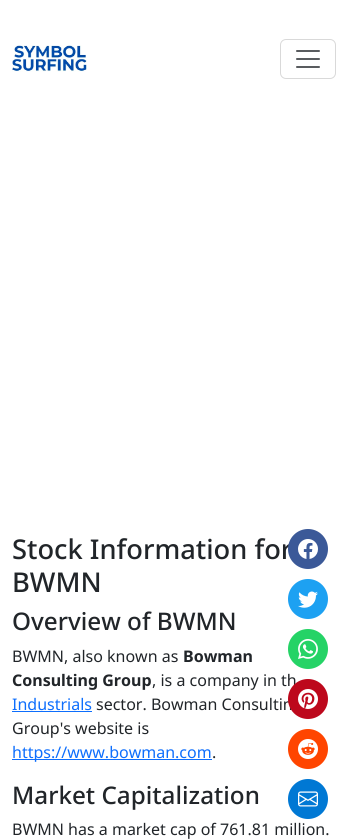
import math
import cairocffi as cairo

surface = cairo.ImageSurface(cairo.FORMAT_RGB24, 348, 839)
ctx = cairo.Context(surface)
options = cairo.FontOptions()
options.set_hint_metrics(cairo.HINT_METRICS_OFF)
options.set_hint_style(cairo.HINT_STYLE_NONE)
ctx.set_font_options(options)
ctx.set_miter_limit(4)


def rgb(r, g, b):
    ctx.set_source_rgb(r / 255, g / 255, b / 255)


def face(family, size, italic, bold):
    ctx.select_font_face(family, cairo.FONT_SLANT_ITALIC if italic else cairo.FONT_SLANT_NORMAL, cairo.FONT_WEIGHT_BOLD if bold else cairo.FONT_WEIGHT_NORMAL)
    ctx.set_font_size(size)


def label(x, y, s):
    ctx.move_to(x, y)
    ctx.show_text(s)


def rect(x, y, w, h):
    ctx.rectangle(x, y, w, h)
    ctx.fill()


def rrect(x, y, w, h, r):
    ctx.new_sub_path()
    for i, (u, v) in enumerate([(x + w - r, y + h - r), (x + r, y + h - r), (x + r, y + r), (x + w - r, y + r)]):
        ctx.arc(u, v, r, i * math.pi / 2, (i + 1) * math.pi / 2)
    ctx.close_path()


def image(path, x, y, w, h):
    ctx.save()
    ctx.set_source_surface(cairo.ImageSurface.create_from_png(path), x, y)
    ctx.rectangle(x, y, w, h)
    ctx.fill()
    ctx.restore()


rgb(255, 255, 255)
ctx.paint()
image('image0.png', 12, 45, 75, 27)
rrect(280.5, 39.5, 55, 39, 5.5)
rgb(217, 217, 217)
ctx.set_line_width(1)
ctx.stroke()
image('image1.png', 296, 50, 24, 18)
face('Noto Sans Medium', 27.25, 0, 0)
rgb(33, 37, 41)
label(12, 559, 'Stock Information for')
rgb(59, 89, 152)
ctx.new_path()
ctx.arc(308, 549, 20, 0, 2 * math.pi)
ctx.fill()
image('image2.png', 298, 539, 20, 20)
rgb(29, 161, 242)
ctx.arc(308, 599, 20, 0, 2 * math.pi)
ctx.fill()
image('image3.png', 298, 591, 20, 17)
rgb(37, 211, 102)
ctx.arc(308, 649, 20, 0, 2 * math.pi)
ctx.fill()
image('image4.png', 298, 639, 20, 20)
face('Noto Sans', 16, 0, 0)
rgb(33, 37, 41)
label(152, 686, ', is a company in th')
label(96, 710, 'sector. Bowman Consultin')
rgb(189, 8, 28)
ctx.new_path()
ctx.arc(308, 699, 20, 0, 2 * math.pi)
ctx.fill()
image('image5.png', 298, 689, 20, 20)
rgb(255, 69, 0)
ctx.arc(308, 749, 20, 0, 2 * math.pi)
ctx.fill()
image('image6.png', 298, 739, 20, 20)
rgb(0, 120, 212)
ctx.arc(308, 799, 20, 0, 2 * math.pi)
ctx.fill()
image('image7.png', 298, 791, 20, 16)
face('Noto Sans Medium', 27.25, 0, 0)
rgb(33, 37, 41)
label(12, 592, 'BWMN')
face('Noto Sans Medium', 24.25, 0, 0)
label(12, 630, 'Overview of BWMN')
face('Noto Sans', 16, 0, 0)
label(12, 662, 'BWMN, also known as')
face('Noto Sans', 16, 0, 1)
label(183, 662, 'Bowman')
label(12, 686, 'Consulting Group')
face('Noto Sans', 16, 0, 0)
rgb(13, 110, 253)
label(12, 710, 'Industrials')
rect(12, 711, 80, 1)
rgb(33, 37, 41)
label(12, 734, 'Group\'s website is')
rgb(13, 110, 253)
rect(12, 759, 200, 1)
label(12, 758, 'https://www.bowman.com')
rgb(33, 37, 41)
label(212, 758, '.')
face('Noto Sans Medium', 24.25, 0, 0)
label(12, 804, 'Market Capitalization')
face('Noto Sans', 16, 0, 0)
label(12, 835, 'BWMN has a market cap of 761.81 million.')
surface.write_to_png('render.png')
